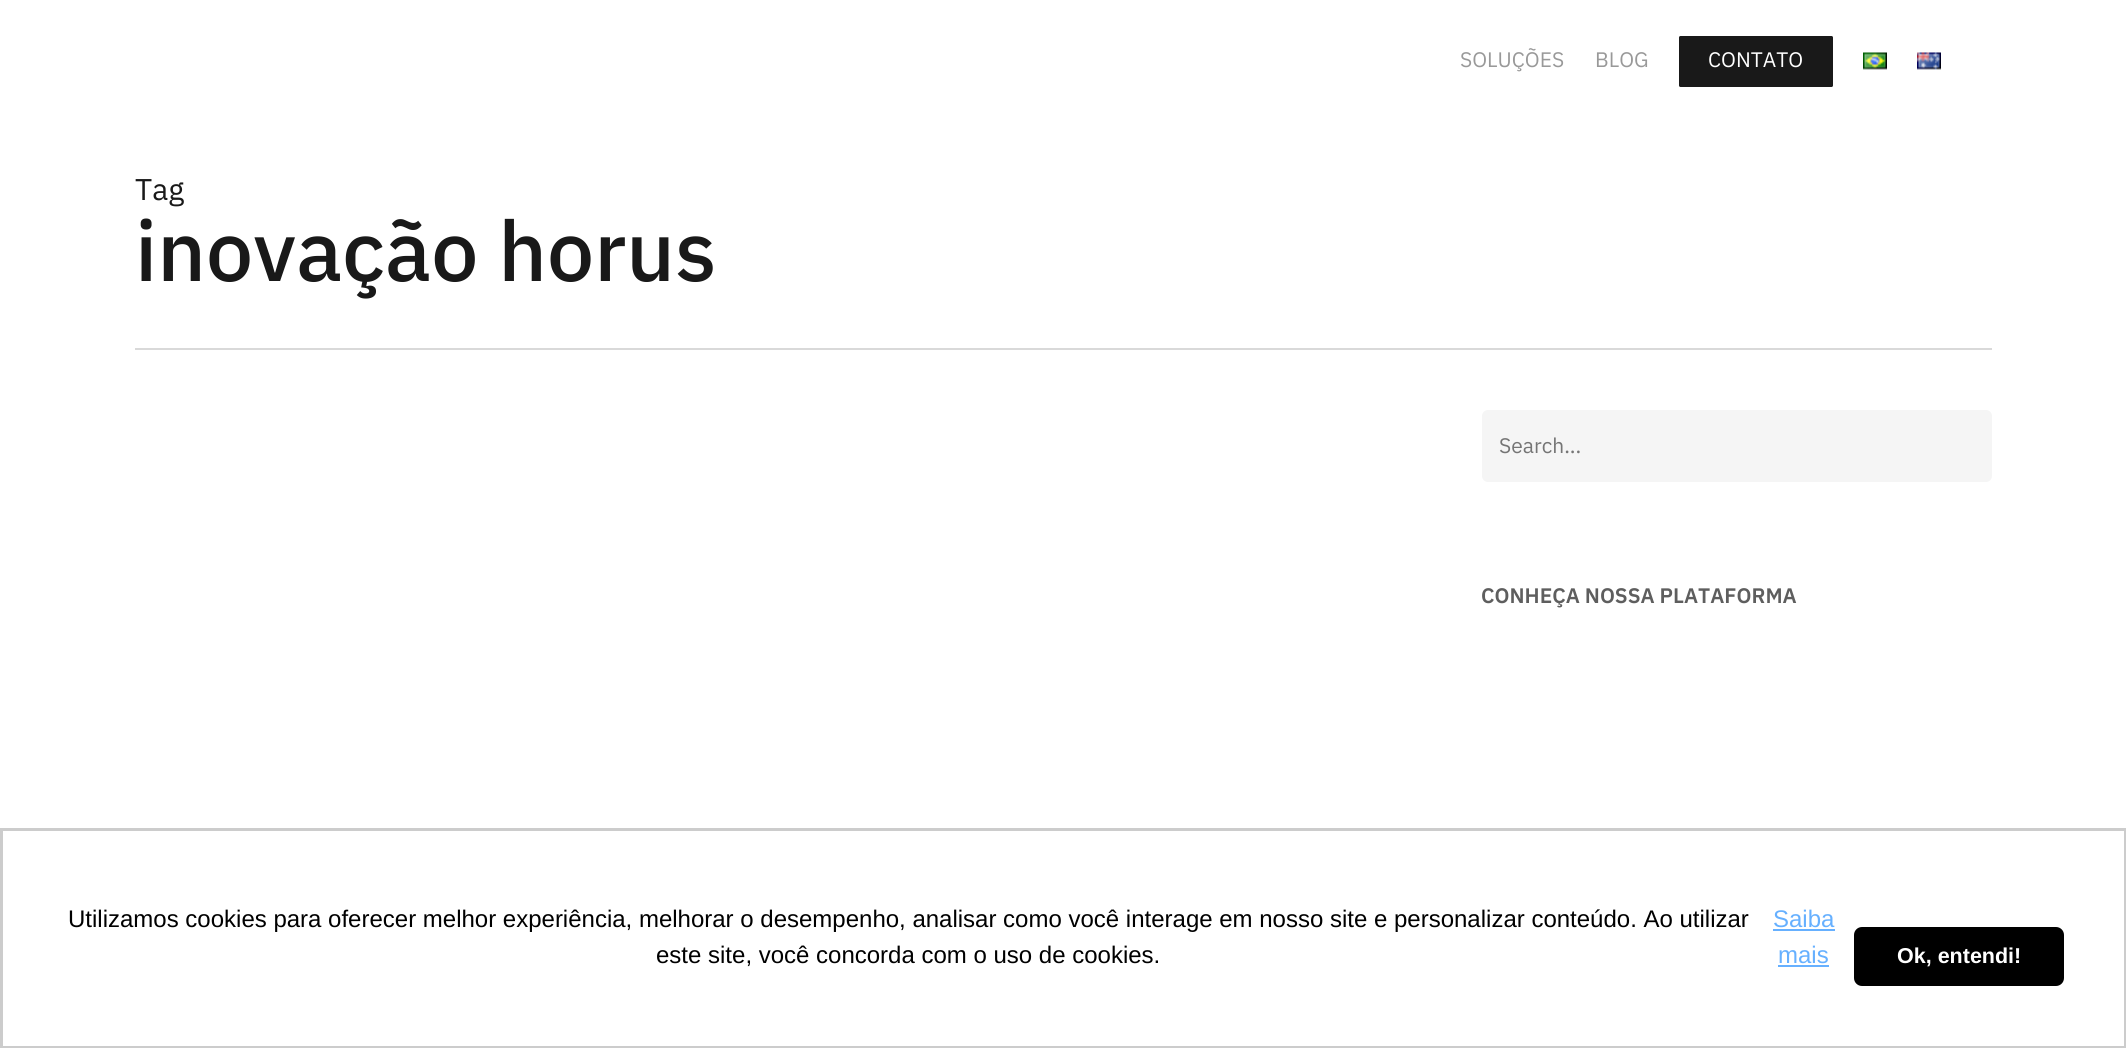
import math
import cairocffi as cairo

surface = cairo.ImageSurface(cairo.FORMAT_RGB24, 2126, 1048)
ctx = cairo.Context(surface)
options = cairo.FontOptions()
options.set_hint_metrics(cairo.HINT_METRICS_OFF)
options.set_hint_style(cairo.HINT_STYLE_NONE)
ctx.set_font_options(options)
ctx.set_miter_limit(4)


def rgb(r, g, b):
    ctx.set_source_rgb(r / 255, g / 255, b / 255)


def face(family, size, italic, bold):
    ctx.select_font_face(family, cairo.FONT_SLANT_ITALIC if italic else cairo.FONT_SLANT_NORMAL, cairo.FONT_WEIGHT_BOLD if bold else cairo.FONT_WEIGHT_NORMAL)
    ctx.set_font_size(size)


def label(x, y, s):
    ctx.move_to(x, y)
    ctx.show_text(s)


def rect(x, y, w, h):
    ctx.rectangle(x, y, w, h)
    ctx.fill()


def rrect(x, y, w, h, r):
    ctx.new_sub_path()
    for i, (u, v) in enumerate([(x + w - r, y + h - r), (x + r, y + h - r), (x + r, y + r), (x + w - r, y + r)]):
        ctx.arc(u, v, r, i * math.pi / 2, (i + 1) * math.pi / 2)
    ctx.close_path()


def image(path, x, y, w, h):
    ctx.save()
    ctx.set_source_surface(cairo.ImageSurface.create_from_png(path), x, y)
    ctx.rectangle(x, y, w, h)
    ctx.fill()
    ctx.restore()


rgb(255, 255, 255)
ctx.paint()
face('IBM Plex Sans', 21, 0, 0)
rgb(153, 153, 153)
label(1460, 67, 'SOLUÇÕES')
label(1595, 67, 'BLOG')
rgb(25, 25, 25)
rrect(1679, 36, 154, 51, 1.5)
ctx.fill()
rgb(255, 255, 255)
label(1708, 67, 'CONTATO')
image('image0.png', 1863, 52, 24, 18)
image('image1.png', 1917, 52, 24, 18)
rgb(217, 217, 217)
rect(135, 348, 1857, 2)
face('IBM Plex Sans', 30, 0, 0)
rgb(25, 25, 25)
label(135, 200, 'Tag')
face('IBM Plex Sans Medium', 84, 0, 0)
label(135, 281, 'inovação horus')
rgb(245, 245, 245)
rrect(1482, 410, 510, 72, 6)
ctx.fill()
face('IBM Plex Sans', 21, 0, 0)
rgb(117, 117, 117)
label(1499, 453, 'Search...')
face('IBM Plex Sans SemiBold', 21, 0, 0)
rgb(94, 94, 94)
label(1481, 603, 'CONHEÇA NOSSA PLATAFORMA')
ctx.rectangle(1.5, 829.5, 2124, 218)
rgb(204, 204, 204)
ctx.set_line_width(3)
ctx.stroke()
face('Liberation Sans', 24, 0, 0)
rgb(0, 0, 0)
label(68, 927, 'Utilizamos cookies para oferecer melhor experiência, melhorar o desempenho, analisar como você interage em nosso site e personalizar conteúdo. Ao utilizar')
label(656, 963, 'este site, você concorda com o uso de cookies.')
rgb(102, 176, 255)
label(1773, 927, 'Saiba')
rect(1773, 929, 62, 2)
label(1778, 963, 'mais')
rect(1778, 965, 51, 2)
rgb(0, 0, 0)
rrect(1854, 927, 210, 59, 8)
ctx.fill()
face('Liberation Sans', 21.5, 0, 1)
rgb(255, 255, 255)
label(1897, 963, 'Ok, entendi!')
surface.write_to_png('render.png')
